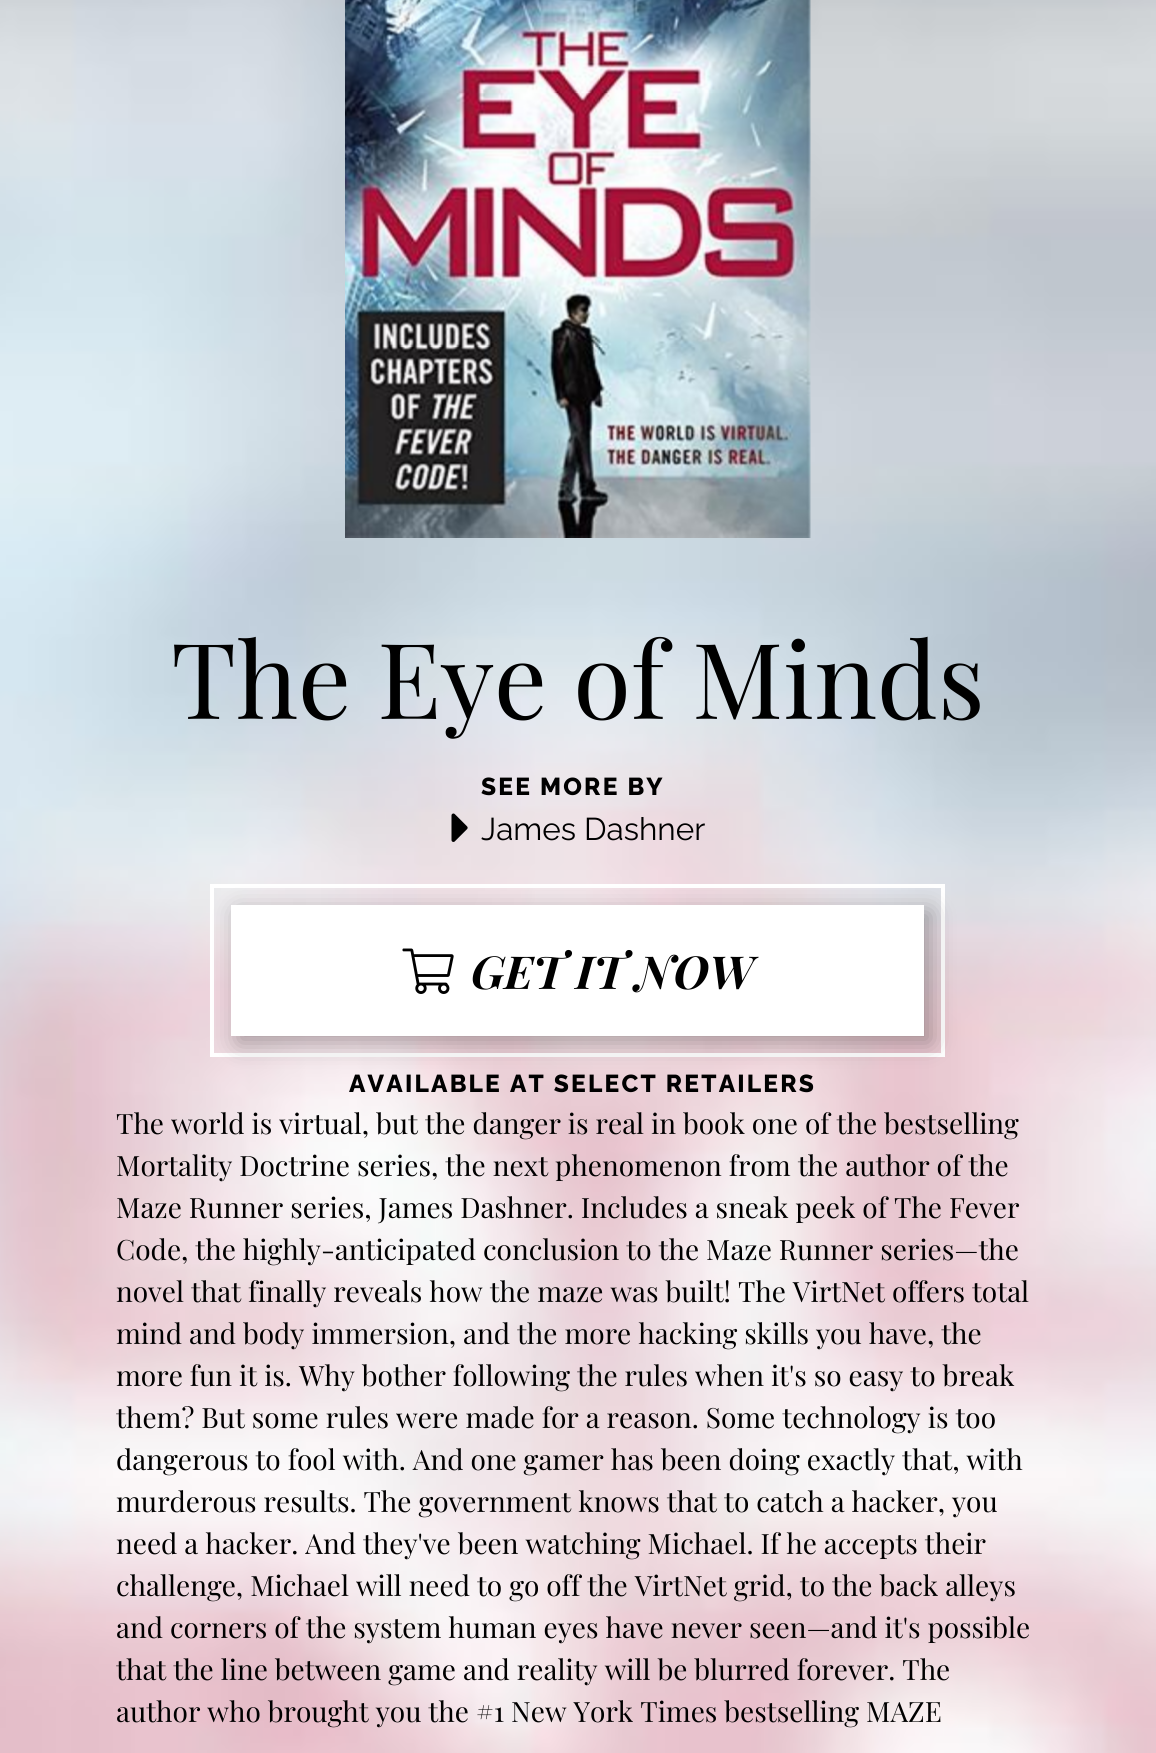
import math
import cairocffi as cairo

surface = cairo.ImageSurface(cairo.FORMAT_RGB24, 1156, 1753)
ctx = cairo.Context(surface)
options = cairo.FontOptions()
options.set_hint_metrics(cairo.HINT_METRICS_OFF)
options.set_hint_style(cairo.HINT_STYLE_NONE)
ctx.set_font_options(options)
ctx.set_miter_limit(4)


def rgb(r, g, b):
    ctx.set_source_rgb(r / 255, g / 255, b / 255)


def face(family, size, italic, bold):
    ctx.select_font_face(family, cairo.FONT_SLANT_ITALIC if italic else cairo.FONT_SLANT_NORMAL, cairo.FONT_WEIGHT_BOLD if bold else cairo.FONT_WEIGHT_NORMAL)
    ctx.set_font_size(size)


def label(x, y, s):
    ctx.move_to(x, y)
    ctx.show_text(s)


def tracked(x, y, s, letter, word):
    ctx.move_to(x, y)
    for ch in s:
        ctx.show_text(ch)
        ctx.rel_move_to(letter + word * (ch == ' '), 0)


def rect(x, y, w, h):
    ctx.rectangle(x, y, w, h)
    ctx.fill()


def rrect(x, y, w, h, r):
    ctx.new_sub_path()
    for i, (u, v) in enumerate([(x + w - r, y + h - r), (x + r, y + h - r), (x + r, y + r), (x + w - r, y + r)]):
        ctx.arc(u, v, r, i * math.pi / 2, (i + 1) * math.pi / 2)
    ctx.close_path()


def soft_shadow(x, y, w, h, r, blur, alpha):
    ctx.push_group_with_content(cairo.CONTENT_ALPHA)
    ctx.set_operator(cairo.OPERATOR_SOURCE)
    for i in range(15, -16, -2):
        e = blur * i / 6
        if min(w, h) + 2 * e > 0:
            ctx.set_source_rgba(0, 0, 0, alpha * math.erfc((i - 1) / 8.5) / 2)
            rrect(x - e, y - e, w + 2 * e, h + 2 * e, max(0, min(r + e + blur * .6, min(w, h) / 2 + e)))
            ctx.fill()
    ctx.mask(ctx.pop_group())


def image(path, x, y, w, h):
    ctx.save()
    ctx.set_source_surface(cairo.ImageSurface.create_from_png(path), x, y)
    ctx.rectangle(x, y, w, h)
    ctx.fill()
    ctx.restore()


rgb(255, 255, 255)
ctx.paint()
image('image0.png', 0, 0, 1156, 1753)
image('image1.png', 345, 0, 466, 538)
face('Playfair Display', 105, 0, 0)
rgb(0, 0, 0)
label(171, 719, 'The Eye of Minds')
image('image2.png', 451, 813, 17, 29)
face('Raleway ExtraBold', 24.5, 0, 0)
tracked(481, 795, 'SEE MORE BY', 2.2, 0)
face('Raleway', 31.5, 0, 0)
label(481, 840, 'James Dashner')
ctx.rectangle(212, 886, 731, 169)
rgb(255, 255, 255)
ctx.set_line_width(4)
ctx.stroke()
rgb(0, 0, 0)
soft_shadow(238, 912, 693, 131, 0, 12, 0.3)
rgb(255, 255, 255)
rect(231, 905, 693, 131)
image('image3.png', 402, 948, 52, 46)
face('Playfair Display', 45.5, 1, 1)
rgb(0, 0, 0)
label(471, 989, 'GET IT NOW')
face('Raleway ExtraBold', 24.5, 0, 0)
tracked(349, 1092, 'AVAILABLE AT SELECT RETAILERS', 2.2, 0)
face('Playfair Display', 28, 0, 0)
label(116, 1134, 'The world is virtual, but the danger is real in book one of the bestselling')
label(116, 1176, 'Mortality Doctrine series, the next phenomenon from the author of the')
label(116, 1218, 'Maze Runner series, James Dashner. Includes a sneak peek of The Fever')
label(116, 1260, 'Code, the highly-anticipated conclusion to the Maze Runner series—the')
label(116, 1302, 'novel that finally reveals how the maze was built! The VirtNet offers total')
label(116, 1344, 'mind and body immersion, and the more hacking skills you have, the')
label(116, 1386, 'more fun it is. Why bother following the rules when it\'s so easy to break')
label(116, 1428, 'them? But some rules were made for a reason. Some technology is too')
label(116, 1470, 'dangerous to fool with. And one gamer has been doing exactly that, with')
label(116, 1512, 'murderous results. The government knows that to catch a hacker, you')
label(116, 1554, 'need a hacker. And they\'ve been watching Michael. If he accepts their')
label(116, 1596, 'challenge, Michael will need to go off the VirtNet grid, to the back alleys')
label(116, 1638, 'and corners of the system human eyes have never seen—and it\'s possible')
label(116, 1680, 'that the line between game and reality will be blurred forever. The')
label(116, 1722, 'author who brought you the #1 New York Times bestselling MAZE')
surface.write_to_png('render.png')
